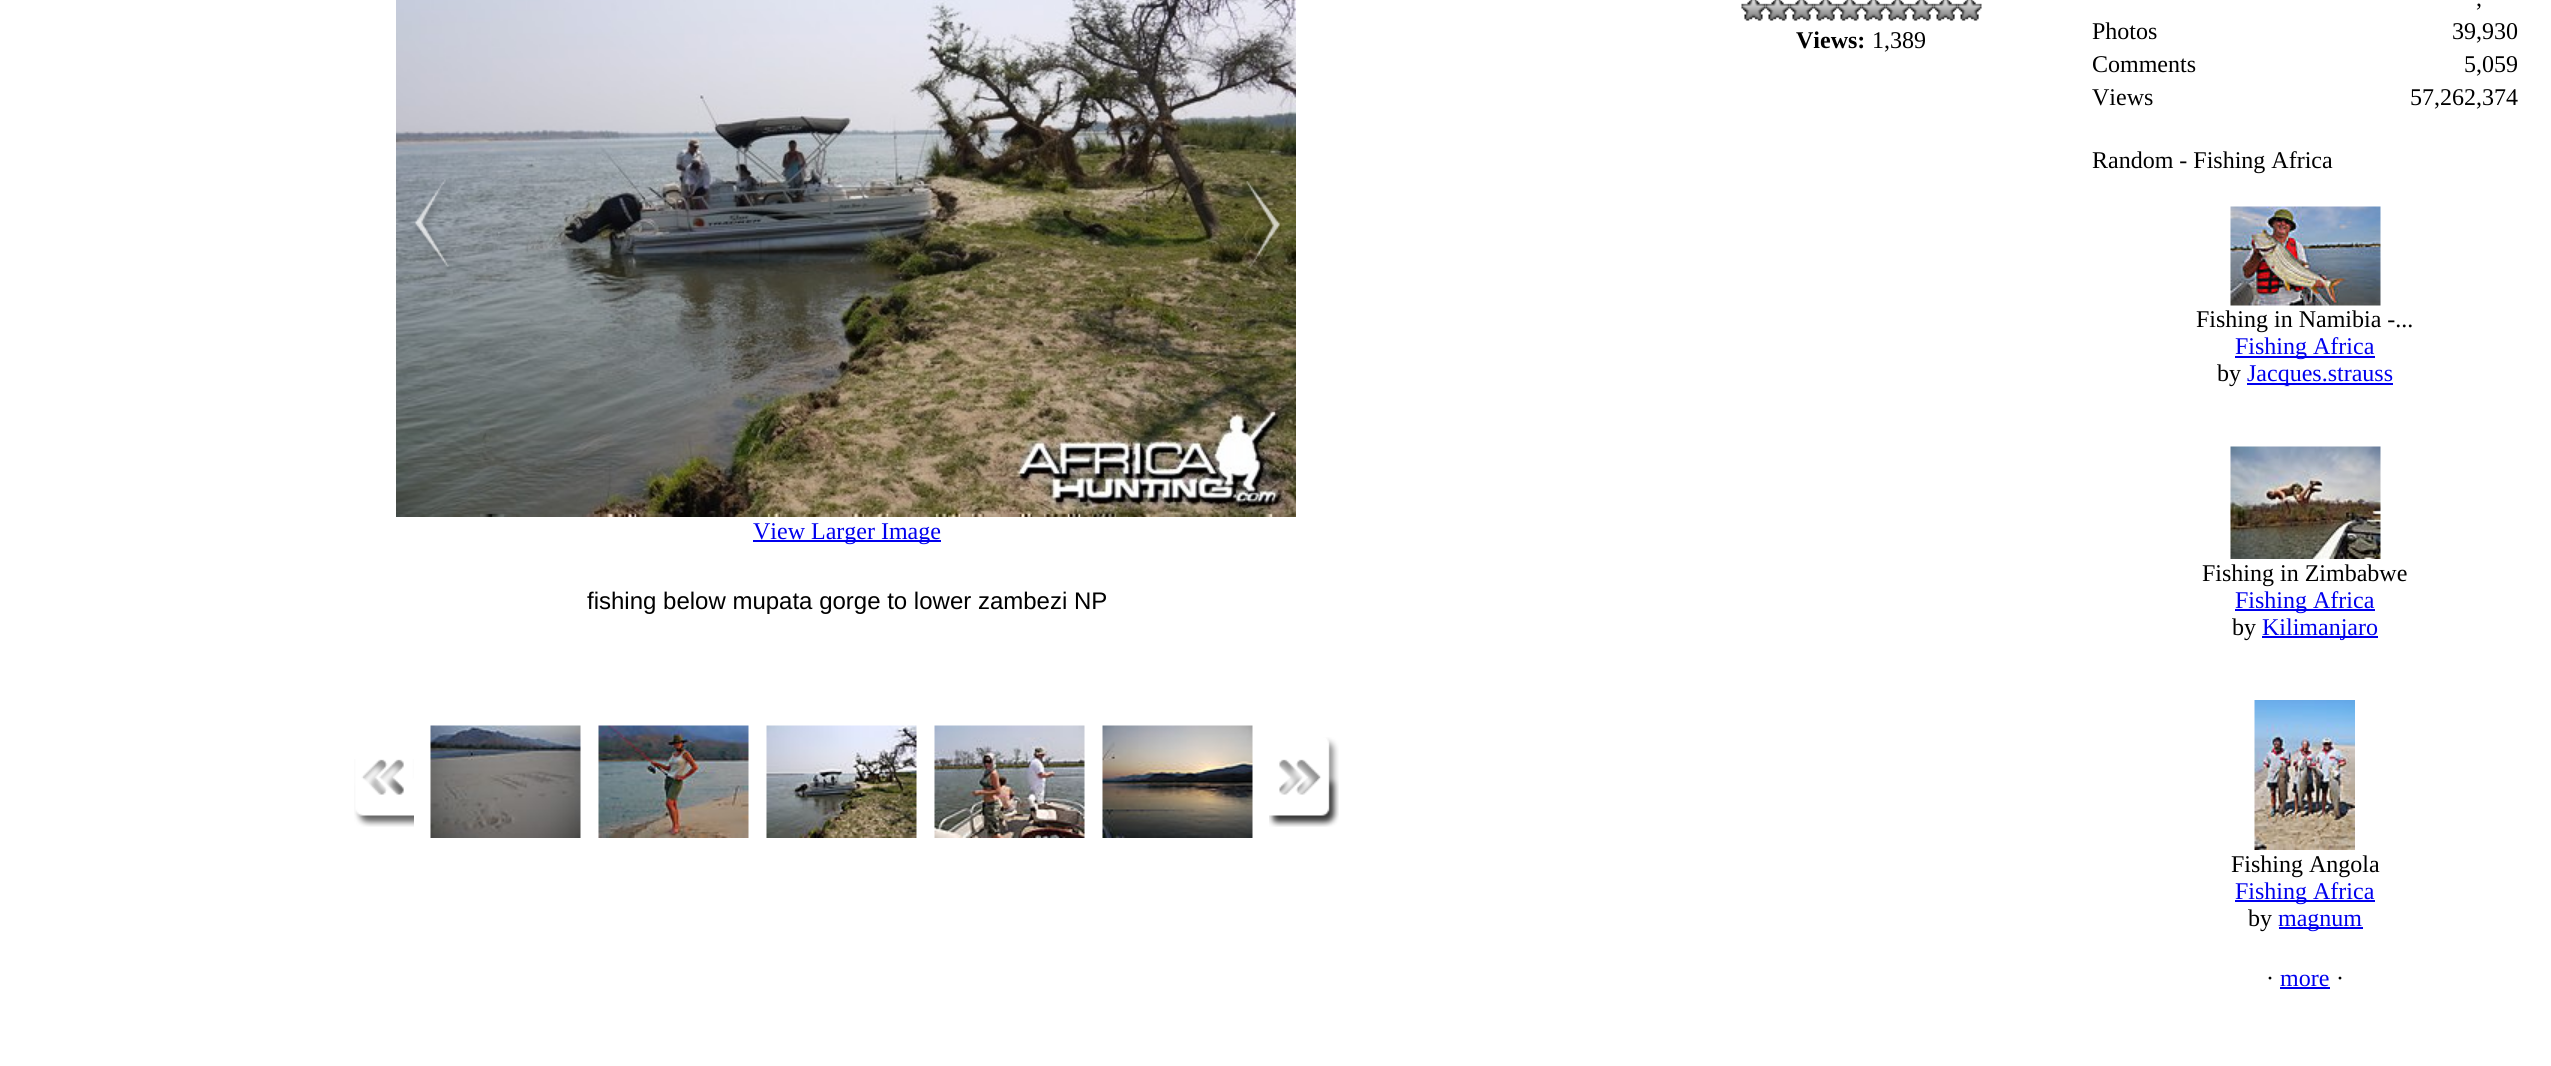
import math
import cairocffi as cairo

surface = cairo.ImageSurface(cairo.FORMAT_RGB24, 2551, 1066)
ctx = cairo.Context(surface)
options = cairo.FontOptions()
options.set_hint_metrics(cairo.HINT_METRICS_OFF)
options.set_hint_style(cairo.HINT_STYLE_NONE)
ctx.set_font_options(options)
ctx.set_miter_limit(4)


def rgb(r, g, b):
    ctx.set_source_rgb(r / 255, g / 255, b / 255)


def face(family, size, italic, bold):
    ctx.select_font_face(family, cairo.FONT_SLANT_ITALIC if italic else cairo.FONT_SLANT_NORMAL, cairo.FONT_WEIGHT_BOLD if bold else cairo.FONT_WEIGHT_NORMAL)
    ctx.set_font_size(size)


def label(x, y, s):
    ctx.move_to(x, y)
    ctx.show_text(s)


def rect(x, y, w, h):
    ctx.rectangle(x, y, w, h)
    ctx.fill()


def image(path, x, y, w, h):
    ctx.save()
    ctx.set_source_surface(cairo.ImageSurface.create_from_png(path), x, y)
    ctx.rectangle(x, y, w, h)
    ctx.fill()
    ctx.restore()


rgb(255, 255, 255)
ctx.paint()
image('image0.png', 1741, 0, 25, 21)
image('image1.png', 1765, 0, 25, 21)
image('image1.png', 1789, 0, 25, 21)
image('image2.png', 1813, 0, 25, 21)
image('image1.png', 1837, 0, 25, 21)
image('image1.png', 1861, 0, 25, 21)
image('image2.png', 1885, 0, 25, 21)
image('image2.png', 1909, 0, 25, 21)
image('image2.png', 1933, 0, 25, 21)
image('image2.png', 1957, 0, 25, 21)
face('Liberation Serif', 24, 0, 1)
rgb(0, 0, 0)
label(1796, 48, 'Views:')
face('Liberation Serif', 24, 0, 0)
label(1872, 48, '1,389')
image('image3.png', 396, 0, 900, 517)
image('image4.png', 415, 179, 37, 91)
image('image5.png', 1244, 180, 36, 89)
rgb(0, 0, 238)
rect(753, 540, 188, 2)
label(753, 539, 'View Larger Image')
face('Liberation Sans', 24, 0, 0)
rgb(0, 0, 0)
label(587, 609, 'fishing below mupata gorge to lower zambezi NP')
image('image6.png', 354, 759, 60, 68)
image('image7.png', 430, 725, 151, 113)
image('image8.png', 598, 725, 151, 113)
image('image9.png', 766, 725, 151, 113)
image('image10.png', 934, 725, 151, 113)
image('image11.png', 1102, 725, 151, 113)
image('image12.png', 1269, 737, 70, 90)
face('Liberation Serif', 24, 0, 0)
label(2476, 6, ',')
label(2092, 39, 'Photos')
label(2452, 39, '39,930')
label(2092, 72, 'Comments')
label(2464, 72, '5,059')
label(2092, 105, 'Views')
label(2410, 105, '57,262,374')
label(2092, 168, 'Random - Fishing Africa')
image('image13.png', 2230, 206, 151, 100)
label(2196, 327, 'Fishing in Namibia -...')
rgb(0, 0, 238)
rect(2235, 356, 140, 2)
label(2235, 354, 'Fishing Africa')
rgb(0, 0, 0)
label(2217, 381, 'by')
rgb(0, 0, 238)
rect(2247, 383, 146, 2)
label(2247, 381, 'Jacques.strauss')
image('image14.png', 2230, 446, 151, 113)
rgb(0, 0, 0)
label(2202, 581, 'Fishing in Zimbabwe')
rgb(0, 0, 238)
rect(2235, 609, 140, 2)
label(2235, 608, 'Fishing Africa')
rgb(0, 0, 0)
label(2232, 635, 'by')
rgb(0, 0, 238)
rect(2262, 636, 116, 2)
label(2262, 635, 'Kilimanjaro')
image('image15.png', 2254, 700, 101, 150)
rgb(0, 0, 0)
label(2231, 872, 'Fishing Angola')
rgb(0, 0, 238)
rect(2235, 900, 140, 2)
label(2235, 899, 'Fishing Africa')
rgb(0, 0, 0)
label(2248, 926, 'by')
rgb(0, 0, 238)
rect(2279, 927, 84, 2)
label(2278, 926, 'magnum')
rgb(0, 0, 0)
label(2266, 986, '·')
rgb(0, 0, 238)
label(2280, 986, 'more')
rect(2280, 987, 50, 2)
rgb(0, 0, 0)
label(2336, 986, '·')
surface.write_to_png('render.png')
